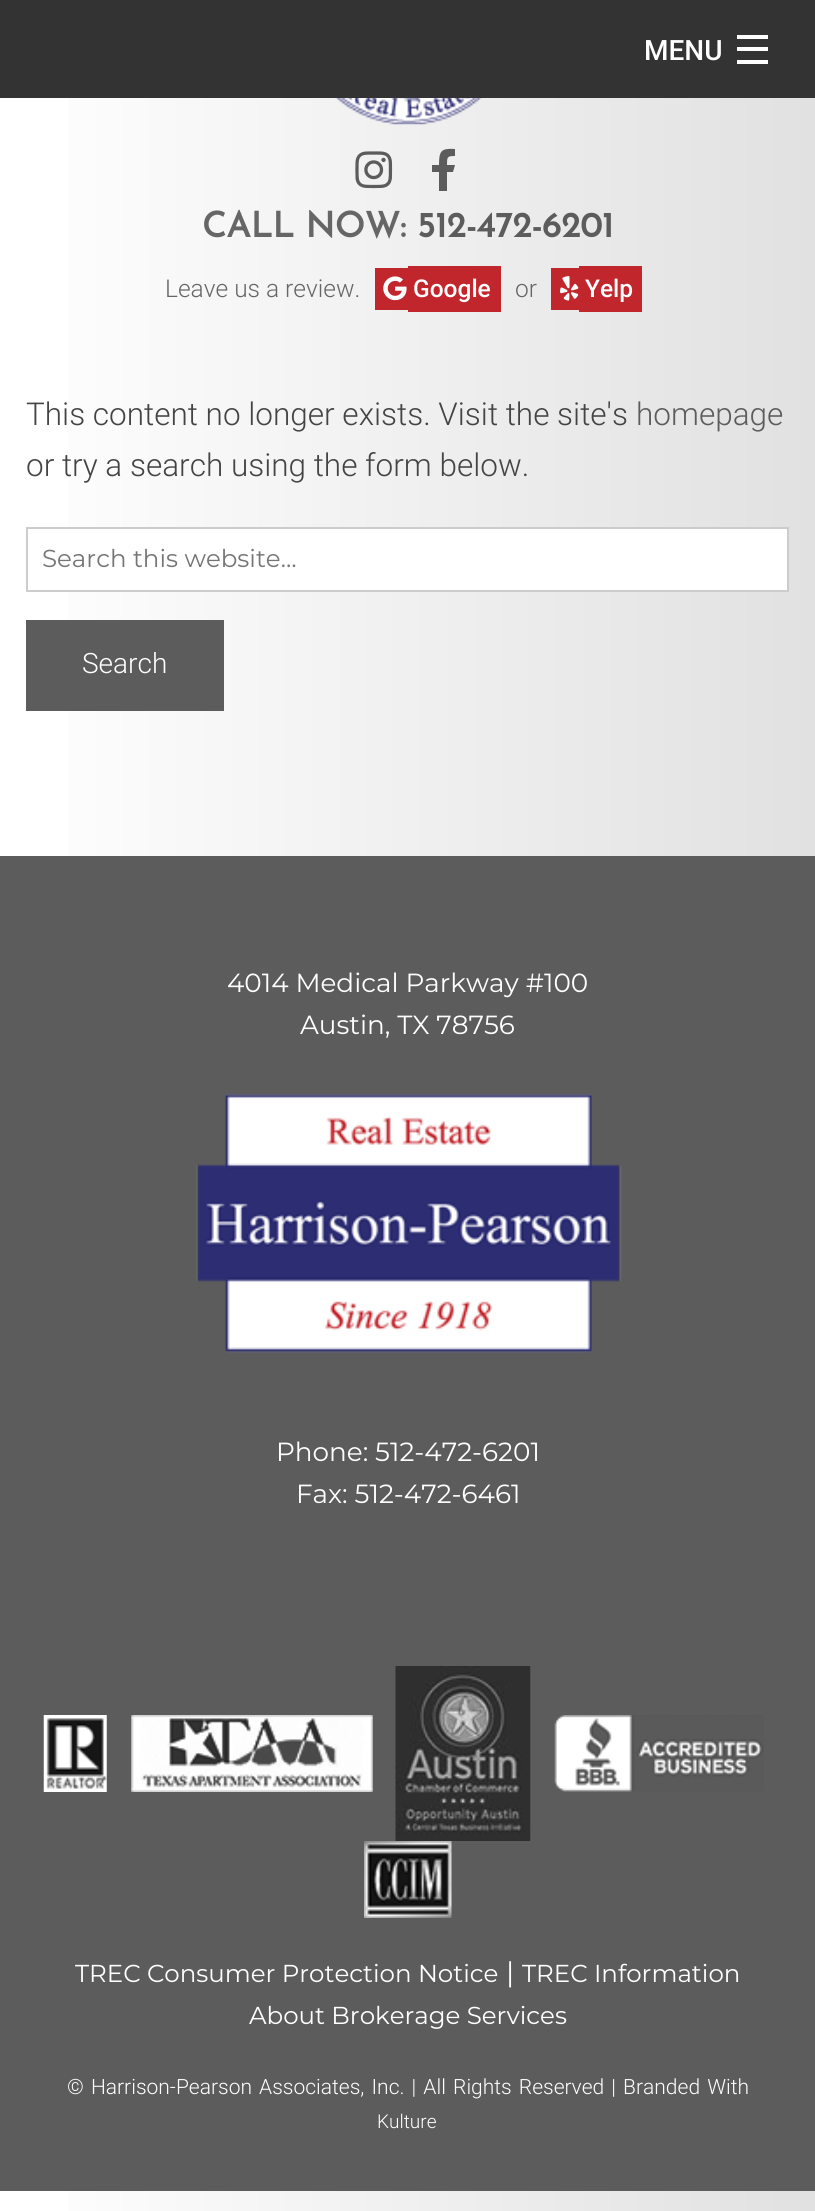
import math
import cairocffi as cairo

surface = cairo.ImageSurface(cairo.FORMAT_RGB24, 815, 2211)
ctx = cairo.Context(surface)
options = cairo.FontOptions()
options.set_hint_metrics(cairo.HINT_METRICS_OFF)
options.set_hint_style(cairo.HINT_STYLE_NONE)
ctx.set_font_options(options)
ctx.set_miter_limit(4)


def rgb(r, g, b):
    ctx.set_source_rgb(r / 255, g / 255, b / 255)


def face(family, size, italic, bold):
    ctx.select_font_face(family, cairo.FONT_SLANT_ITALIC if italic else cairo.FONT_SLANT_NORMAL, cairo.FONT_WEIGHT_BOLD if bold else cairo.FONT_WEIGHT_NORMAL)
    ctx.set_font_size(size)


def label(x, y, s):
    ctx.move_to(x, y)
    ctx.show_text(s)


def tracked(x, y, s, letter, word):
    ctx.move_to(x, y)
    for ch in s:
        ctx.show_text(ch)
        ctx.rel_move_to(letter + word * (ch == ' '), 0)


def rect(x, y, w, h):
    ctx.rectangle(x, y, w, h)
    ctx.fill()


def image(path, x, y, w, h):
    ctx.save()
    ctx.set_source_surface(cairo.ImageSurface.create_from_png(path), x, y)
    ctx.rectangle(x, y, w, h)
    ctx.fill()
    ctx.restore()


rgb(255, 255, 255)
ctx.paint()
gradient = cairo.LinearGradient(0, 686, 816, 686)
gradient.add_color_stop_rgba(0, 1, 1, 1, 1)
gradient.add_color_stop_rgba(1, 0.882, 0.882, 0.882, 1)
ctx.set_source(gradient)
rect(68, 98, 747, 2113)
rgb(51, 51, 51)
rect(0, 0, 815, 98)
face('Roboto Medium', 28, 0, 0)
rgb(255, 255, 255)
label(644, 60, 'MENU')
rect(737, 60, 31, 4)
rect(737, 47, 31, 4)
rect(737, 35, 31, 4)
image('image0.png', 335, 98, 147, 27)
image('image1.png', 355, 151, 38, 38)
rgb(92, 92, 92)
ctx.new_path()
ctx.move_to(453, 172)
ctx.line_to(447, 172)
ctx.line_to(447, 191)
ctx.line_to(439, 191)
ctx.line_to(439, 172)
ctx.line_to(432, 172)
ctx.line_to(432, 165)
ctx.line_to(439, 165)
ctx.curve_to(439, 151, 441, 148, 455, 149)
ctx.line_to(455, 156)
ctx.curve_to(447, 156, 447, 157, 447, 165)
ctx.line_to(455, 165)
ctx.close_path()
ctx.fill()
face('Josefin Sans', 35, 0, 1)
rgb(102, 102, 102)
label(202, 237, 'CALL NOW:')
rgb(92, 92, 92)
label(417, 237, '512-472-6201')
face('Roboto Light', 24.5, 0, 0)
rgb(102, 102, 102)
label(165, 297, 'Leave us a review.')
rgb(194, 38, 45)
rect(375, 268, 33, 42)
rect(408, 266, 93, 46)
image('image2.png', 383, 276, 24, 25)
face('Roboto Medium', 24.5, 0, 0)
rgb(255, 255, 255)
label(413, 297, 'Google')
face('Roboto Light', 24.5, 0, 0)
rgb(102, 102, 102)
label(515, 297, 'or')
rgb(194, 38, 45)
rect(551, 268, 28, 42)
rect(579, 266, 63, 46)
image('image3.png', 560, 276, 19, 25)
face('Roboto Medium', 24.5, 0, 0)
rgb(255, 255, 255)
label(585, 297, 'Yelp')
face('Roboto Light', 31.5, 0, 0)
rgb(68, 68, 68)
label(26, 425, 'This content no longer exists. Visit the site\'s')
rgb(92, 92, 92)
label(636, 425, 'homepage')
rgb(68, 68, 68)
label(26, 476, 'or try a search using the form below.')
rgb(255, 255, 255)
rect(68, 529, 719, 61)
ctx.rectangle(27, 528, 761, 63)
rgb(204, 204, 204)
ctx.stroke()
face('Montserrat Thin', 24.5, 0, 0)
rgb(117, 117, 117)
label(42, 567, 'Search this website…')
rgb(92, 92, 92)
rect(26, 620, 198, 91)
face('Roboto Light', 28, 0, 0)
rgb(255, 255, 255)
label(82, 673, 'Search')
rgb(92, 92, 92)
rect(0, 856, 815, 1335)
face('Montserrat Thin', 26.25, 0, 0)
rgb(255, 255, 255)
label(227, 992, '4014 Medical Parkway #100')
label(300, 1034, 'Austin, TX 78756')
image('image4.png', 196, 1093, 426, 260)
label(276, 1461, 'Phone: 512-472-6201')
label(296, 1503, 'Fax: 512-472-6461')
image('image5.png', 43, 1715, 64, 77)
image('image6.png', 131, 1715, 242, 77)
image('image7.png', 395, 1666, 136, 175)
image('image8.png', 554, 1715, 210, 77)
image('image9.png', 364, 1841, 88, 77)
face('Montserrat Thin', 24.5, 0, 0)
label(75, 1982, 'TREC Consumer Protection Notice')
face('Montserrat Thin', 28, 0, 0)
label(506, 1982, '|')
face('Montserrat Thin', 24.5, 0, 0)
label(522, 1982, 'TREC Information')
label(249, 2024, 'About Brokerage Services')
face('Roboto Light', 21, 0, 0)
tracked(67, 2094, '© Harrison-Pearson Associates, Inc. | All Rights Reserved | Branded With', 0, 2)
face('Roboto Light', 19, 0, 0)
label(377, 2128, 'Kulture')
surface.write_to_png('render.png')
